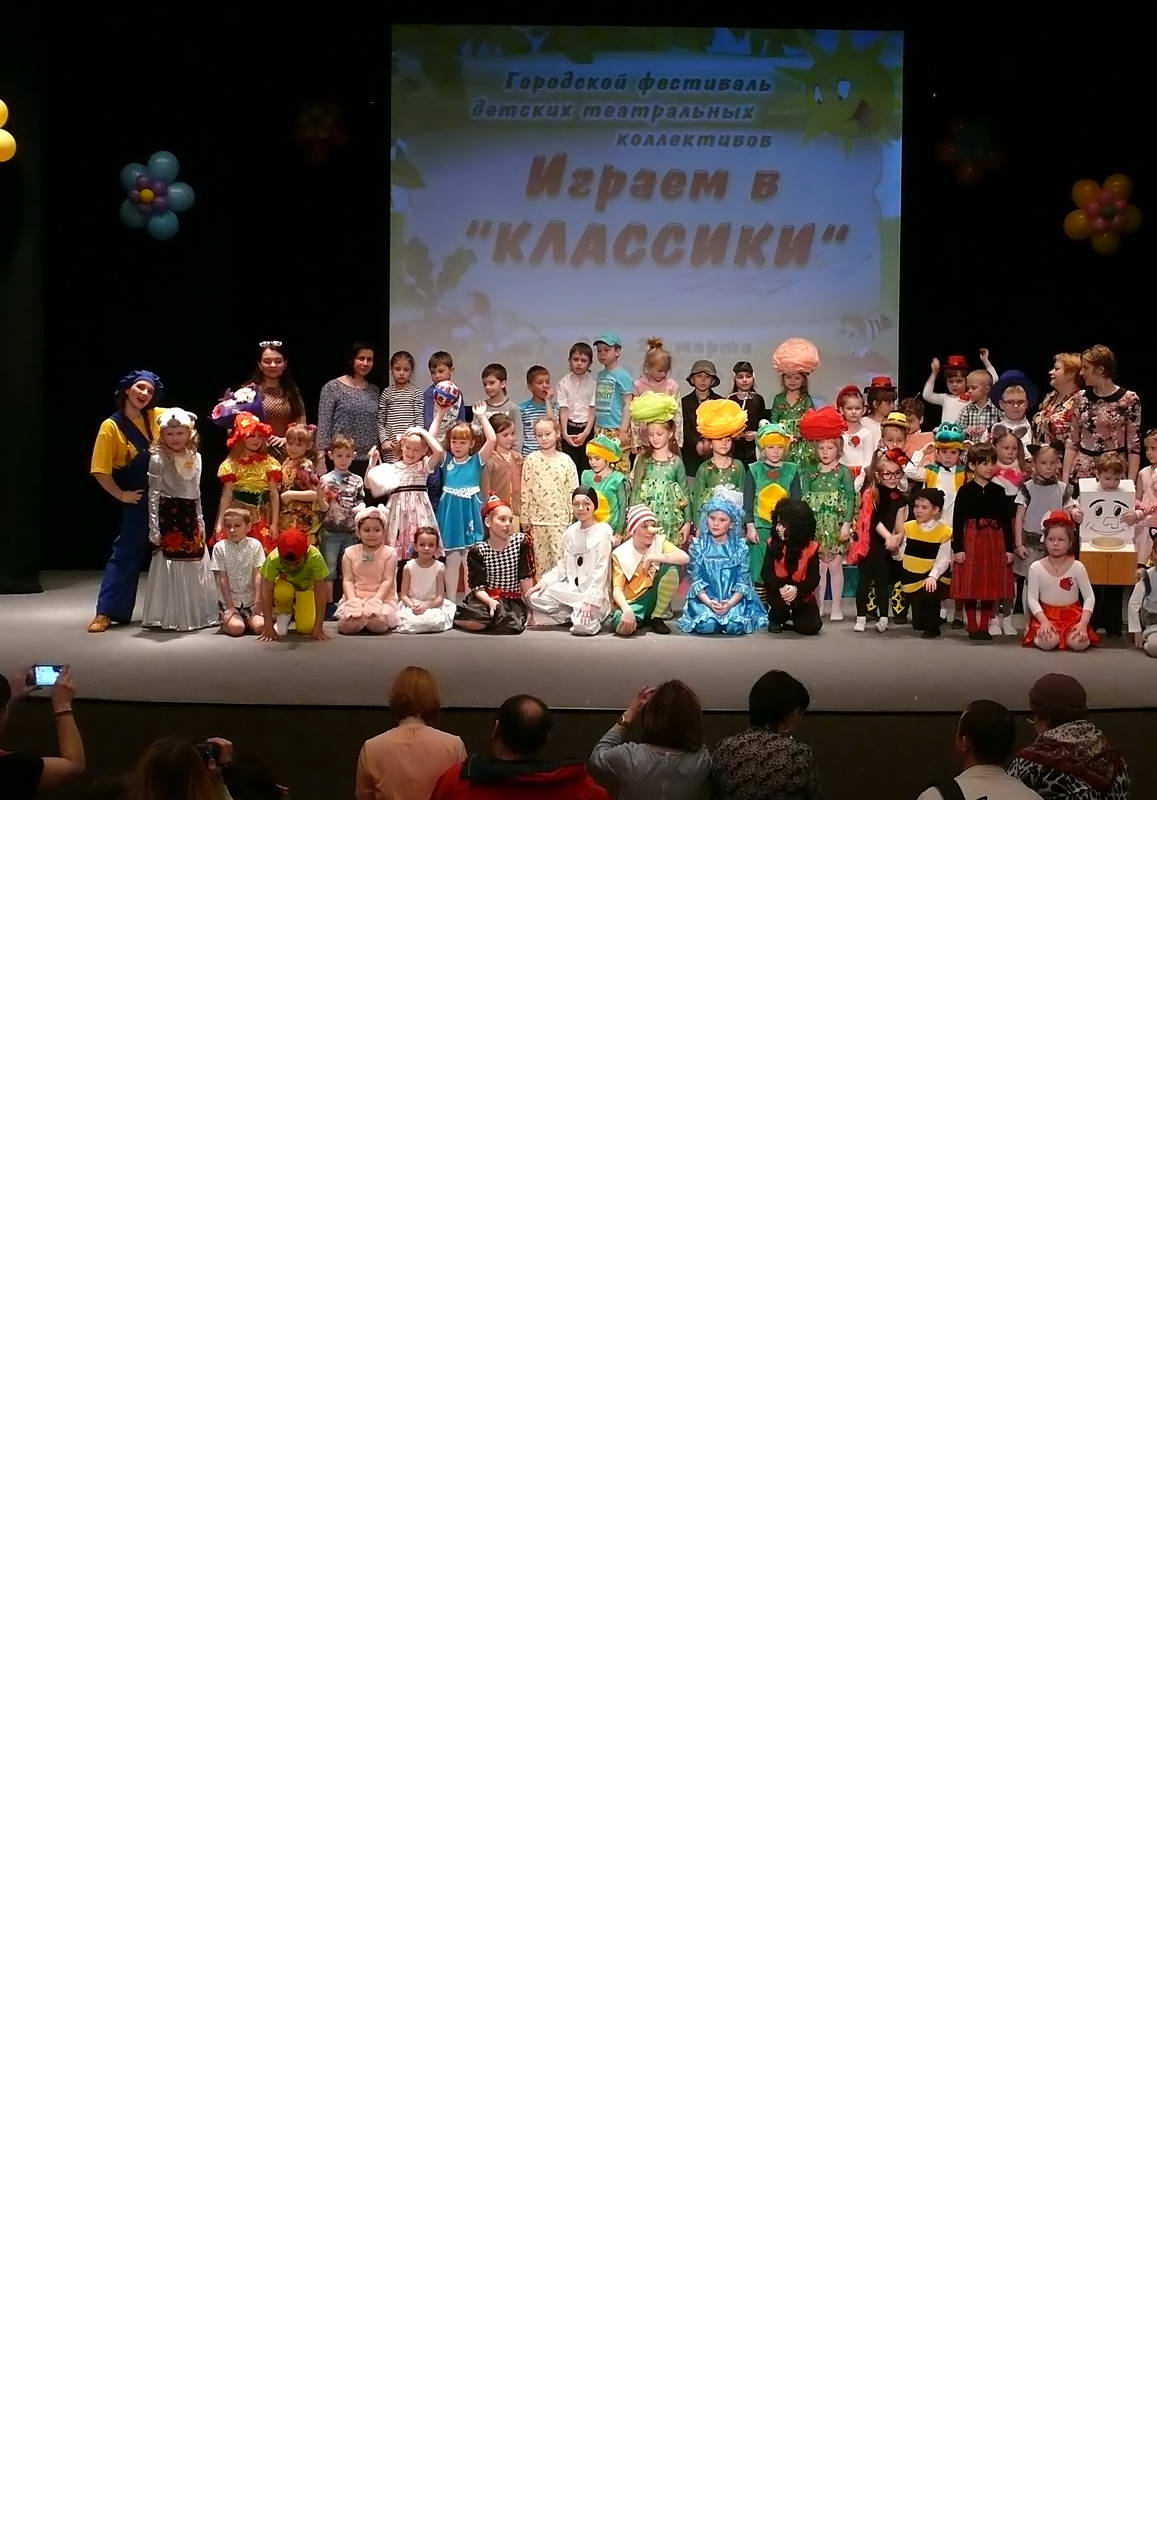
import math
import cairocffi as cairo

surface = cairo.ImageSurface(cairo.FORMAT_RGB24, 1157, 2538)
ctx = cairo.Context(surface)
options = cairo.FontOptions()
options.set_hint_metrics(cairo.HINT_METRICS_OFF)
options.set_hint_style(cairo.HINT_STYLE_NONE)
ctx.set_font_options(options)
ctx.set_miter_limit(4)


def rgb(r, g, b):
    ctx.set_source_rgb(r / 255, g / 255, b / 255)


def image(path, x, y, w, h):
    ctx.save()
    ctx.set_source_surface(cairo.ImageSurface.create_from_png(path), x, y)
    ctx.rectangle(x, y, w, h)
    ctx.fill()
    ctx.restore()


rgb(255, 255, 255)
ctx.paint()
image('image0.png', 0, 0, 1157, 800)
surface.write_to_png('render.png')
